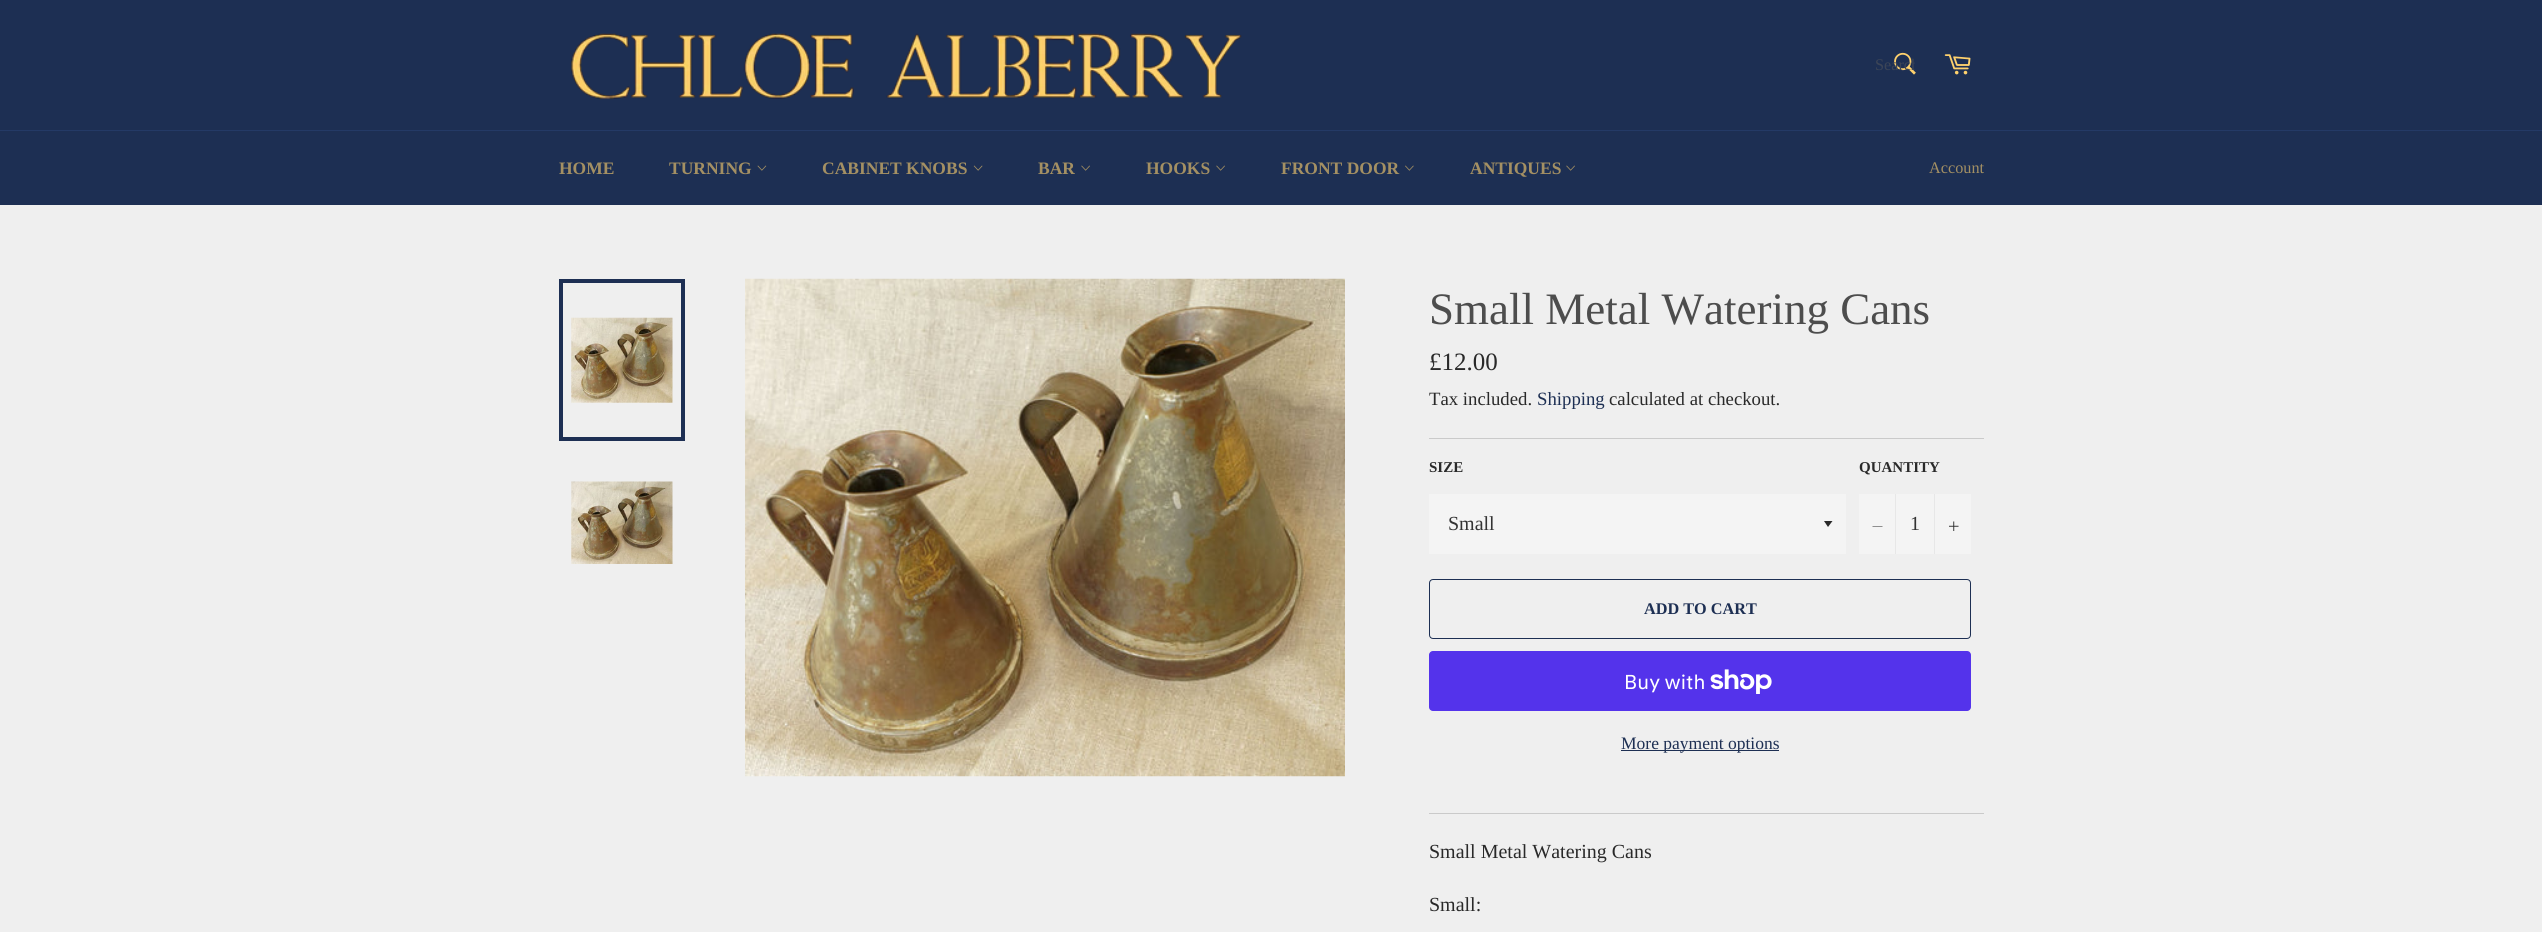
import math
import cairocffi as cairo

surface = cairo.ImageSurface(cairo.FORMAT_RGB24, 2542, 932)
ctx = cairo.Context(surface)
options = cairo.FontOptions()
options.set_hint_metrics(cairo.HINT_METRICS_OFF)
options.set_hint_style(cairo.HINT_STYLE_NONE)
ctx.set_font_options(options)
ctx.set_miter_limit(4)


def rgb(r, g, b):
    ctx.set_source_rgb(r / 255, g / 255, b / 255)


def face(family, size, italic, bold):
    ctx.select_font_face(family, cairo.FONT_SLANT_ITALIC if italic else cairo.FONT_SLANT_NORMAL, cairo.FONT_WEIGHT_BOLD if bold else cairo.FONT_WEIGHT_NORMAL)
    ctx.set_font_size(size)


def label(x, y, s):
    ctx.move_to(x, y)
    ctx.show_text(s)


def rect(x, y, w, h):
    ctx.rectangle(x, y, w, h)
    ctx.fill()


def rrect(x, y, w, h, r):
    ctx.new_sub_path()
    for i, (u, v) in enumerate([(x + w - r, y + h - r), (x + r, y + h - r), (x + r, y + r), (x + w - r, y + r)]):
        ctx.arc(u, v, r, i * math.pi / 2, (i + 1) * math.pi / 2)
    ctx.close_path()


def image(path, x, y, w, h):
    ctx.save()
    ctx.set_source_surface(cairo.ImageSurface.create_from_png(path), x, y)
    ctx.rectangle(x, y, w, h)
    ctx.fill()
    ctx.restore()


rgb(29, 47, 83)
ctx.paint()
image('image0.png', 571, 33, 671, 66)
image('image1.png', 1894, 52, 22, 23)
ctx.save()
ctx.rectangle(1875, 55, 40, 20)
ctx.clip()
face('Liberation Serif', 16.25, 0, 0)
rgb(60, 69, 87)
label(1875, 70, 'Search')
ctx.restore()
image('image2.png', 1944, 54, 27, 21)
rgb(36, 58, 102)
rect(0, 130, 2542, 1)
face('Liberation Serif', 17.5, 0, 1)
rgb(164, 144, 99)
label(559, 174, 'HOME')
label(669, 174, 'TURNING')
image('image3.png', 757, 165, 10, 6)
label(822, 174, 'CABINET KNOBS')
image('image4.png', 973, 165, 10, 6)
label(1038, 174, 'BAR')
image('image5.png', 1081, 165, 9, 6)
label(1146, 174, 'HOOKS')
image('image5.png', 1216, 165, 9, 6)
label(1281, 174, 'FRONT DOOR')
image('image6.png', 1405, 165, 9, 6)
label(1470, 174, 'ANTIQUES')
image('image5.png', 1566, 165, 9, 6)
face('Liberation Serif', 16.25, 0, 0)
label(1929, 173, 'Account')
rgb(239, 239, 239)
rect(0, 205, 2542, 727)
image('image7.png', 571, 317, 102, 86)
ctx.rectangle(561, 281, 122, 158)
rgb(29, 47, 83)
ctx.set_line_width(4)
ctx.stroke()
image('image8.png', 571, 481, 102, 83)
image('image9.png', 745, 278, 600, 499)
face('Liberation Serif', 45, 0, 0)
rgb(77, 77, 77)
label(1429, 324, 'Small Metal Watering Cans')
face('Liberation Serif', 25, 0, 0)
rgb(41, 41, 41)
label(1429, 370, '£12.00')
face('Liberation Serif', 18.75, 0, 0)
label(1429, 405, 'Tax included.')
rgb(29, 47, 83)
label(1537, 405, 'Shipping')
rgb(41, 41, 41)
label(1609, 405, 'calculated at checkout.')
rgb(202, 202, 202)
rect(1429, 438, 555, 1)
face('Liberation Serif', 15, 0, 1)
rgb(41, 41, 41)
label(1429, 472, 'SIZE')
rgb(244, 244, 244)
rect(1429, 494, 417, 60)
rgb(41, 41, 41)
ctx.new_path()
ctx.move_to(1824, 521)
ctx.line_to(1828, 527)
ctx.line_to(1832.5, 521)
ctx.close_path()
ctx.fill()
face('Liberation Serif', 20, 0, 0)
rgb(51, 51, 51)
label(1448, 530, 'Small')
face('Liberation Serif', 15, 0, 1)
rgb(41, 41, 41)
label(1859, 472, 'QUANTITY')
rgb(244, 244, 244)
rect(1859, 494, 112, 60)
rgb(231, 231, 231)
rect(1895, 494, 1, 60)
rgb(41, 41, 41)
ctx.set_fill_rule(cairo.FILL_RULE_EVEN_ODD)
ctx.new_path()
ctx.move_to(1882.5, 526)
ctx.line_to(1882.5, 526.5)
ctx.line_to(1872.5, 526.5)
ctx.line_to(1872.5, 526)
ctx.close_path()
ctx.fill()
face('Liberation Serif', 20, 0, 0)
rgb(51, 51, 51)
label(1910, 530, '1')
rgb(231, 231, 231)
rect(1934, 494, 1, 60)
image('image10.png', 1949, 521, 10, 10)
rrect(1429.5, 579.5, 541, 59, 3.5)
rgb(29, 47, 83)
ctx.set_line_width(1)
ctx.stroke()
face('Liberation Serif', 16.25, 0, 1)
label(1644, 614, 'ADD TO CART')
rgb(84, 51, 235)
rrect(1429, 651, 542, 60, 4)
ctx.fill()
face('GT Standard', 20, 0, 0)
rgb(255, 255, 255)
label(1624, 689, 'Buy with')
image('image11.png', 1710, 669, 62, 25)
rgb(29, 47, 83)
rect(1621, 750, 158, 1)
face('Liberation Serif', 17.5, 0, 0)
label(1621, 749, 'More payment options')
rgb(202, 202, 202)
rect(1429, 813, 555, 1)
face('Liberation Serif', 20, 0, 0)
rgb(41, 41, 41)
label(1429, 858, 'Small Metal Watering Cans')
label(1429, 911, 'Small:')
surface.write_to_png('render.png')
